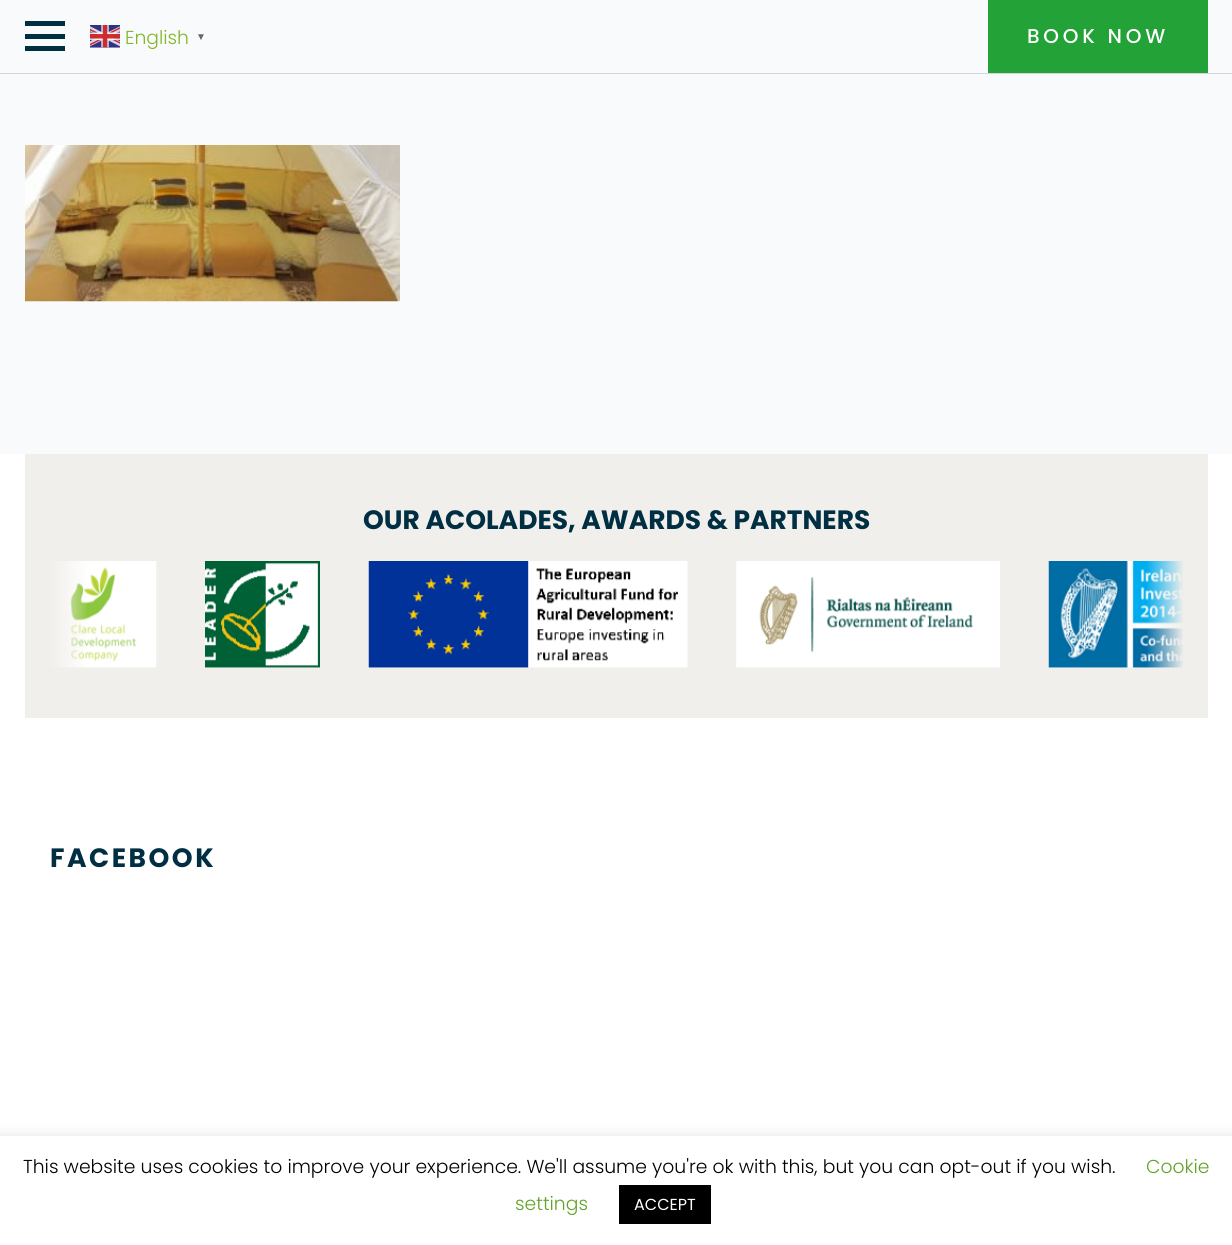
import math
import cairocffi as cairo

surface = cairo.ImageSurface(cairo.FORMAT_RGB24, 1232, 1245)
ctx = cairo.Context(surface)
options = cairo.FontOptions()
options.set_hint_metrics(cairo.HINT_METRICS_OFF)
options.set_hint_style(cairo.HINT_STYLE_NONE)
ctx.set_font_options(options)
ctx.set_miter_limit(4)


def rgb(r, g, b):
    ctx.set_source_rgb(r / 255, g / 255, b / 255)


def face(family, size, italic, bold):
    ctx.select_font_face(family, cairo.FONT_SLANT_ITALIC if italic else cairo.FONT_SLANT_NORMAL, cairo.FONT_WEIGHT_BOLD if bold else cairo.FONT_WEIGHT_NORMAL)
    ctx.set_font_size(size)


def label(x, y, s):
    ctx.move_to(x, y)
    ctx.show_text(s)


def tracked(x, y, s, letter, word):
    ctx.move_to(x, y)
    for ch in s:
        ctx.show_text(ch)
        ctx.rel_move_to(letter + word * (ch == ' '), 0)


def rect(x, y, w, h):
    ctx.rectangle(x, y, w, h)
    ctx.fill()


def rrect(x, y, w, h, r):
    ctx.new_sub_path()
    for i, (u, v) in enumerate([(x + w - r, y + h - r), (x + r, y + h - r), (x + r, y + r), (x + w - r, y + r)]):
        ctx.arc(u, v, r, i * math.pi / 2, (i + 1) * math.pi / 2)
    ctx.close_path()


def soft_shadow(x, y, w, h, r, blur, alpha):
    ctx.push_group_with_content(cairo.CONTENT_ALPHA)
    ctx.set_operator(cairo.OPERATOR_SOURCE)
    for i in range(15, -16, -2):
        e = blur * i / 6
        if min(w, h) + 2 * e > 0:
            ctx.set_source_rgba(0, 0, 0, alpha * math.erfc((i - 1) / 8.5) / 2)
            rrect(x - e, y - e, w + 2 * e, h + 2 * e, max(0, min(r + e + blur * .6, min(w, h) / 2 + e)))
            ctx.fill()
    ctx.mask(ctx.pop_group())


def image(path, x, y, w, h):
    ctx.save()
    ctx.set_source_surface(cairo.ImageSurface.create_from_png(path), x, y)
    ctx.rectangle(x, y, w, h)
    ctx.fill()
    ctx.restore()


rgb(249, 250, 251)
ctx.paint()
rgb(0, 46, 66)
rect(25, 34, 40, 5)
rect(25, 21, 40, 5)
rect(25, 46, 40, 5)
image('image0.png', 90, 25, 30, 23)
face('Poppins Light', 18.75, 0, 0)
rgb(128, 183, 39)
label(125, 44, 'English')
face('Liberation Sans', 10, 0, 1)
rgb(102, 102, 102)
label(196, 40, '▼')
rgb(35, 162, 55)
rect(988, 0, 220, 73)
face('Poppins Medium', 20, 0, 0)
rgb(255, 255, 255)
tracked(1027, 43, 'BOOK NOW', 3.75, 0)
rgb(207, 215, 220)
rect(0, 73, 1232, 1)
image('image1.png', 25, 145, 375, 157)
rgb(241, 239, 235)
rect(25, 454, 1183, 264)
rgb(255, 255, 255)
rect(1208, 454, 24, 264)
rect(0, 454, 25, 264)
face('Poppins', 26.5, 0, 1)
rgb(0, 46, 66)
label(363, 529, 'OUR ACOLADES, AWARDS & PARTNERS')
image('image2.png', 50, 561, 107, 107)
image('image3.png', 205, 561, 115, 107)
image('image4.png', 368, 561, 320, 107)
image('image5.png', 736, 561, 264, 107)
image('image6.png', 1048, 561, 135, 107)
gradient = cairo.LinearGradient(88, 614, 50, 614)
gradient.add_color_stop_rgba(0, 0.945, 0.937, 0.922, 0)
gradient.add_color_stop_rgba(1, 0.945, 0.937, 0.922, 1)
ctx.set_source(gradient)
rect(50, 561, 37, 107)
gradient = cairo.LinearGradient(1146, 614, 1184, 614)
gradient.add_color_stop_rgba(0, 0.945, 0.937, 0.922, 0)
gradient.add_color_stop_rgba(1, 0.945, 0.937, 0.922, 1)
ctx.set_source(gradient)
rect(1147, 561, 36, 107)
rgb(255, 255, 255)
rect(0, 718, 1232, 418)
rgb(0, 46, 66)
tracked(50, 867, 'FACEBOOK', 2.5, 0)
rgb(172, 171, 171)
soft_shadow(0, 1135, 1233, 109, 0, 6, 0.3)
rgb(255, 255, 255)
rect(0, 1136, 1232, 109)
face('Poppins Light', 18.75, 0, 0)
rgb(0, 0, 0)
label(23, 1173, 'This website uses cookies to improve your experience. We\'ll assume you\'re ok with this, but you can opt-out if you wish.')
rgb(98, 163, 41)
label(1146, 1173, 'Cookie')
label(515, 1210, 'settings')
rgb(0, 0, 0)
rect(619, 1185, 92, 39)
face('Poppins', 16, 0, 0)
rgb(255, 255, 255)
label(634, 1210, 'ACCEPT')
surface.write_to_png('render.png')
